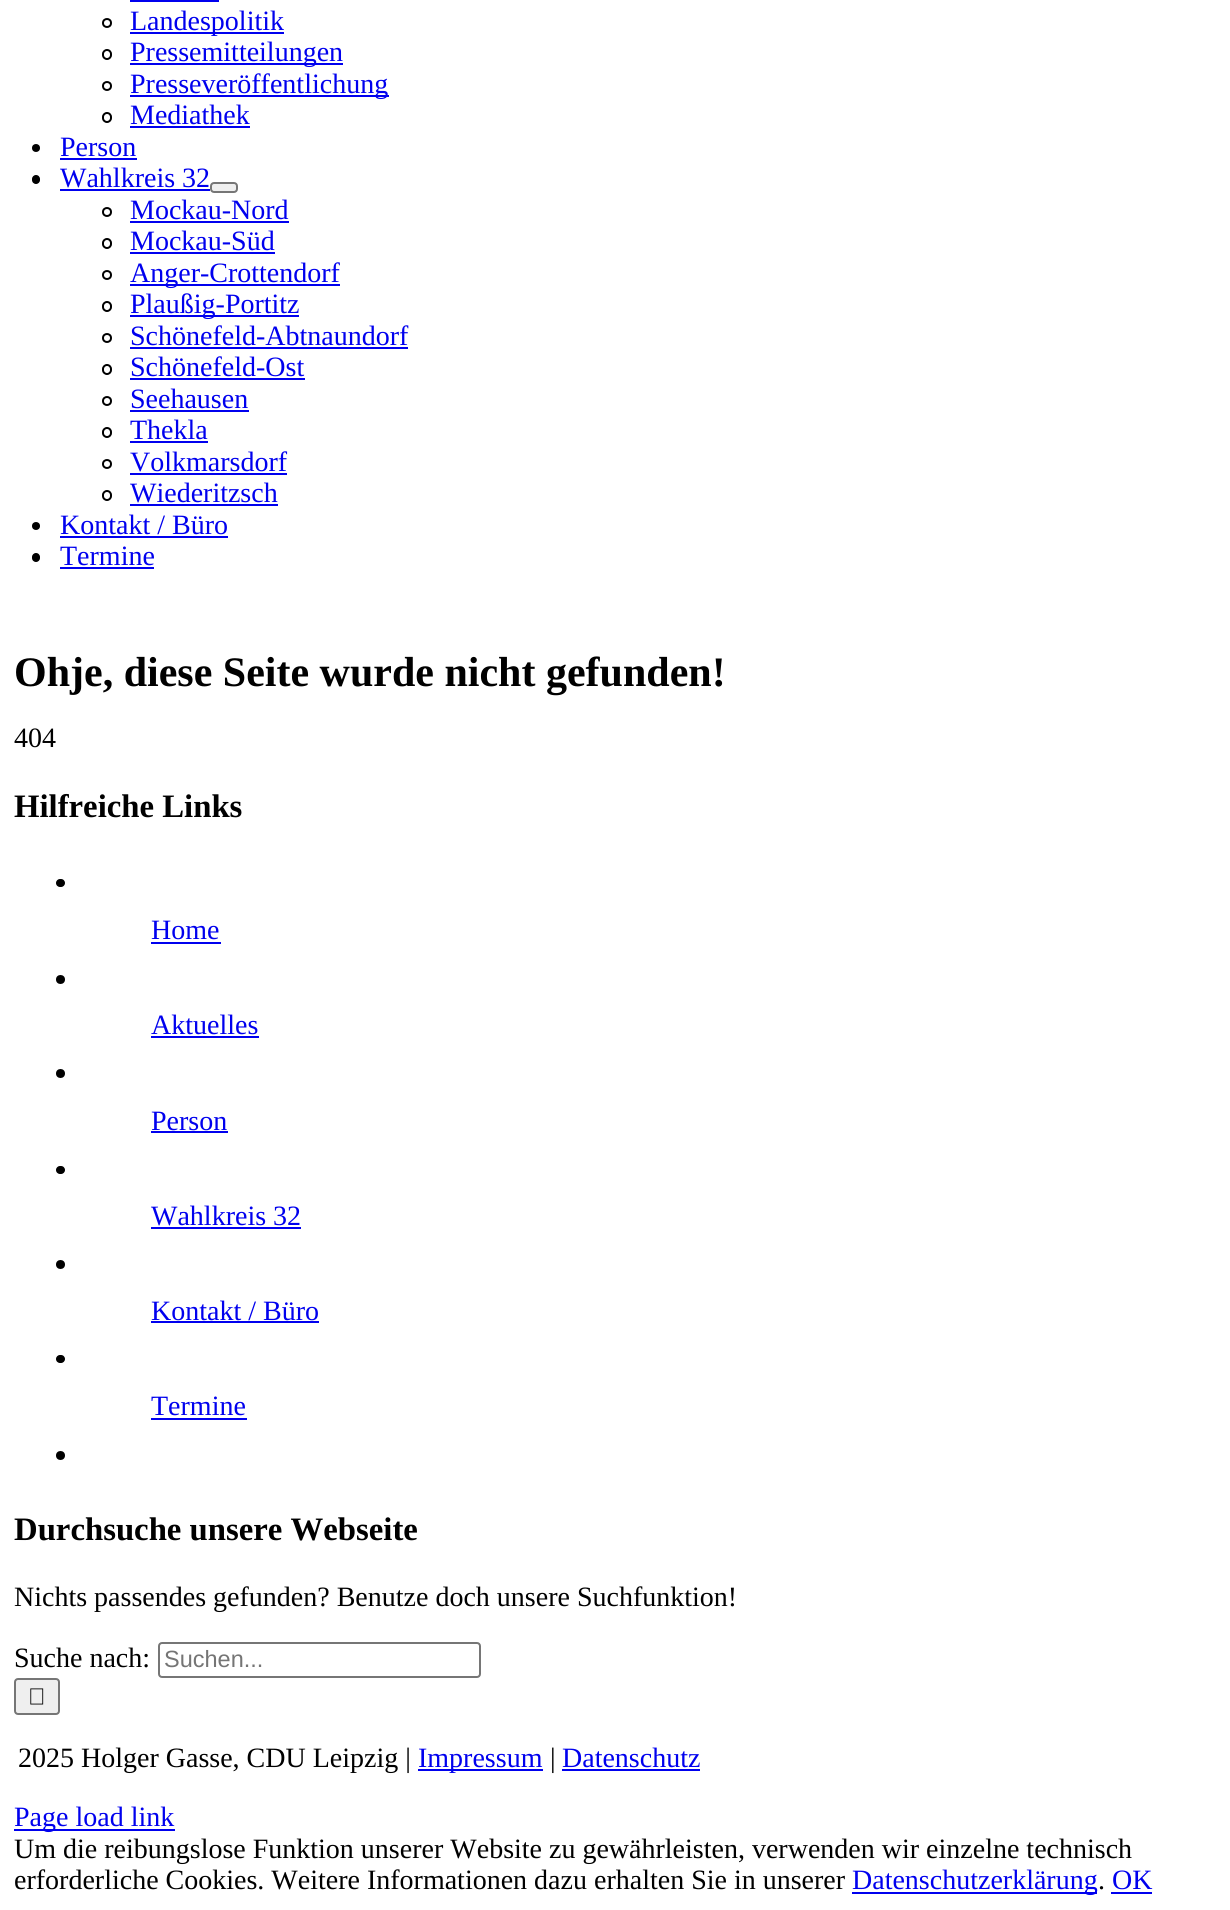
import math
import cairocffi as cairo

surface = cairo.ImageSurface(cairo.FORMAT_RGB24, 1230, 1910)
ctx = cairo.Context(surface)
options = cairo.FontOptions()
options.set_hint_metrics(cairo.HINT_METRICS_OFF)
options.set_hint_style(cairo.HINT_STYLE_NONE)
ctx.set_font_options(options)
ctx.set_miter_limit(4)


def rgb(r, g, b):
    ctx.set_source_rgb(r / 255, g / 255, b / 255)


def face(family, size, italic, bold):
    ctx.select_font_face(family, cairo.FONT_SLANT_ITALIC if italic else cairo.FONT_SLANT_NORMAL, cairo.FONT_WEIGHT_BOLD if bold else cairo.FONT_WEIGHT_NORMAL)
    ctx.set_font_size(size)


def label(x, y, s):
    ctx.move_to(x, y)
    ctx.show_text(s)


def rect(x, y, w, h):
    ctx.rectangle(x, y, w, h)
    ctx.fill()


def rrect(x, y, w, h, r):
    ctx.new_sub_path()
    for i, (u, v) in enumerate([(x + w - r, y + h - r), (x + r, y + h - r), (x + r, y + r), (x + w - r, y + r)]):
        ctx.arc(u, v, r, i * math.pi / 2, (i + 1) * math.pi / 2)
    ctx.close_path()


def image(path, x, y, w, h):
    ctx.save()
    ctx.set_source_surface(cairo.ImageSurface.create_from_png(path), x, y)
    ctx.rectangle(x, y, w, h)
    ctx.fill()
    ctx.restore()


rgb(255, 255, 255)
ctx.paint()
rgb(0, 0, 238)
rect(130, 0, 89, 2)
ctx.arc(107, 23, 4, 0, 2 * math.pi)
rgb(0, 0, 0)
ctx.stroke()
rgb(0, 0, 238)
rect(130, 32, 154, 2)
face('Liberation Serif', 28, 0, 0)
label(130, 30, 'Landespolitik')
rrect(103, 50, 8, 9, 4)
rgb(0, 0, 0)
ctx.stroke()
rgb(0, 0, 238)
rect(130, 63, 213, 2)
label(130, 61, 'Pressemitteilungen')
ctx.new_path()
ctx.arc(107, 86, 4, 0, 2 * math.pi)
rgb(0, 0, 0)
ctx.stroke()
rgb(0, 0, 238)
rect(130, 95, 259, 2)
label(130, 93, 'Presseveröffentlichung')
rrect(103, 113, 8, 9, 4)
rgb(0, 0, 0)
ctx.stroke()
rgb(0, 0, 238)
label(130, 124, 'Mediathek')
rect(130, 126, 120, 2)
rgb(0, 0, 0)
ctx.new_path()
ctx.arc(36, 148, 4, 0, 2 * math.pi)
ctx.fill()
rgb(0, 0, 238)
label(60, 156, 'Person')
rect(60, 158, 77, 2)
rgb(0, 0, 0)
rrect(32, 175, 8, 9, 4)
ctx.fill()
rgb(0, 0, 238)
label(60, 187, 'Wahlkreis 32')
rect(60, 189, 150, 2)
rgb(239, 239, 239)
rrect(211, 183, 26, 9, 3)
ctx.fill_preserve()
rgb(118, 118, 118)
ctx.stroke()
ctx.arc(107, 212, 4, 0, 2 * math.pi)
rgb(0, 0, 0)
ctx.stroke()
rgb(0, 0, 238)
label(130, 219, 'Mockau-Nord')
rect(130, 221, 159, 2)
rrect(103, 239, 8, 9, 4)
rgb(0, 0, 0)
ctx.stroke()
rgb(0, 0, 238)
label(130, 250, 'Mockau-Süd')
rect(130, 252, 145, 2)
ctx.new_path()
ctx.arc(107, 275, 4, 0, 2 * math.pi)
rgb(0, 0, 0)
ctx.stroke()
rgb(0, 0, 238)
rect(130, 284, 210, 2)
label(130, 282, 'Anger-Crottendorf')
rrect(103, 302, 8, 9, 4)
rgb(0, 0, 0)
ctx.stroke()
rgb(0, 0, 238)
rect(130, 315, 169, 2)
label(130, 313, 'Plaußig-Portitz')
ctx.new_path()
ctx.arc(107, 338, 4, 0, 2 * math.pi)
rgb(0, 0, 0)
ctx.stroke()
rgb(0, 0, 238)
label(130, 345, 'Schönefeld-Abtnaundorf')
rect(130, 347, 278, 2)
rrect(103, 365, 8, 9, 4)
rgb(0, 0, 0)
ctx.stroke()
rgb(0, 0, 238)
label(130, 376, 'Schönefeld-Ost')
rect(130, 378, 175, 2)
ctx.new_path()
ctx.arc(107, 401, 4, 0, 2 * math.pi)
rgb(0, 0, 0)
ctx.stroke()
rgb(0, 0, 238)
label(130, 408, 'Seehausen')
rect(130, 410, 119, 2)
rrect(103, 428, 8, 9, 4)
rgb(0, 0, 0)
ctx.stroke()
rgb(0, 0, 238)
label(130, 439, 'Thekla')
rect(130, 441, 78, 2)
ctx.new_path()
ctx.arc(107, 464, 4, 0, 2 * math.pi)
rgb(0, 0, 0)
ctx.stroke()
rgb(0, 0, 238)
label(130, 471, 'Volkmarsdorf')
rect(130, 473, 157, 2)
rrect(103, 491, 8, 9, 4)
rgb(0, 0, 0)
ctx.stroke()
rgb(0, 0, 238)
label(130, 502, 'Wiederitzsch')
rect(130, 504, 148, 2)
rgb(0, 0, 0)
ctx.new_path()
ctx.arc(36, 526, 4, 0, 2 * math.pi)
ctx.fill()
rgb(0, 0, 238)
label(60, 534, 'Kontakt / Büro')
rect(60, 536, 168, 2)
rgb(0, 0, 0)
rrect(32, 553, 8, 9, 4)
ctx.fill()
rgb(0, 0, 238)
label(60, 565, 'Termine')
rect(60, 567, 94, 2)
face('Liberation Serif', 42, 0, 1)
rgb(0, 0, 0)
label(14, 686, 'Ohje, diese Seite wurde nicht gefunden!')
face('Liberation Serif', 28, 0, 0)
label(14, 747, '404')
face('Liberation Serif', 32.75, 0, 1)
label(14, 817, 'Hilfreiche Links')
rrect(56, 879, 9, 8, 4)
ctx.fill()
face('Liberation Serif', 28, 0, 0)
rgb(0, 0, 238)
label(151, 939, 'Home')
rect(151, 942, 70, 2)
rgb(0, 0, 0)
ctx.new_path()
ctx.arc(60.5, 979.5, 4.5, 0, 2 * math.pi)
ctx.fill()
rgb(0, 0, 238)
label(151, 1034, 'Aktuelles')
rect(151, 1036, 108, 2)
rgb(0, 0, 0)
ctx.new_path()
ctx.arc(60.5, 1073.5, 4.5, 0, 2 * math.pi)
ctx.fill()
rgb(0, 0, 238)
label(151, 1130, 'Person')
rect(151, 1131, 77, 2)
rgb(0, 0, 0)
rrect(56, 1166, 9, 8, 4)
ctx.fill()
rgb(0, 0, 238)
label(151, 1225, 'Wahlkreis 32')
rect(151, 1227, 150, 2)
rgb(0, 0, 0)
ctx.new_path()
ctx.arc(60.5, 1264.5, 4.5, 0, 2 * math.pi)
ctx.fill()
rgb(0, 0, 238)
label(151, 1320, 'Kontakt / Büro')
rect(151, 1321, 168, 2)
rgb(0, 0, 0)
rrect(56, 1355, 9, 8, 4)
ctx.fill()
rgb(0, 0, 238)
label(151, 1415, 'Termine')
rect(151, 1418, 96, 2)
rgb(0, 0, 0)
ctx.new_path()
ctx.arc(60.5, 1455.5, 4.5, 0, 2 * math.pi)
ctx.fill()
face('Liberation Serif', 32.75, 0, 1)
label(14, 1540, 'Durchsuche unsere Webseite')
face('Liberation Serif', 28, 0, 0)
label(14, 1606, 'Nichts passendes gefunden? Benutze doch unsere Suchfunktion!')
label(14, 1667, 'Suche nach:')
rrect(159, 1643, 321, 34, 3)
rgb(118, 118, 118)
ctx.stroke()
face('Liberation Sans', 23.5, 0, 0)
rgb(117, 117, 117)
label(164, 1667, 'Suchen...')
rgb(239, 239, 239)
rrect(15, 1679, 44, 35, 3)
ctx.fill_preserve()
rgb(118, 118, 118)
ctx.stroke()
image('image0.png', 30, 1688, 14, 17)
face('Liberation Serif', 28, 0, 0)
rgb(0, 0, 0)
label(18, 1767, '2025 Holger Gasse, CDU Leipzig |')
rgb(0, 0, 238)
rect(418, 1769, 125, 2)
label(418, 1767, 'Impressum')
rgb(0, 0, 0)
label(550, 1767, '|')
rgb(0, 0, 238)
label(562, 1767, 'Datenschutz')
rect(562, 1769, 138, 2)
rect(14, 1829, 161, 2)
label(14, 1826, 'Page load link')
rgb(0, 0, 0)
label(14, 1858, 'Um die reibungslose Funktion unserer Website zu gewährleisten, verwenden wir einzelne technisch')
label(14, 1889, 'erforderliche Cookies. Weitere Informationen dazu erhalten Sie in unserer')
rgb(0, 0, 238)
rect(852, 1892, 245, 2)
label(852, 1889, 'Datenschutzerklärung')
rgb(0, 0, 0)
label(1098, 1889, '.')
rgb(0, 0, 238)
label(1112, 1889, 'OK')
rect(1111, 1892, 41, 2)
surface.write_to_png('render.png')
